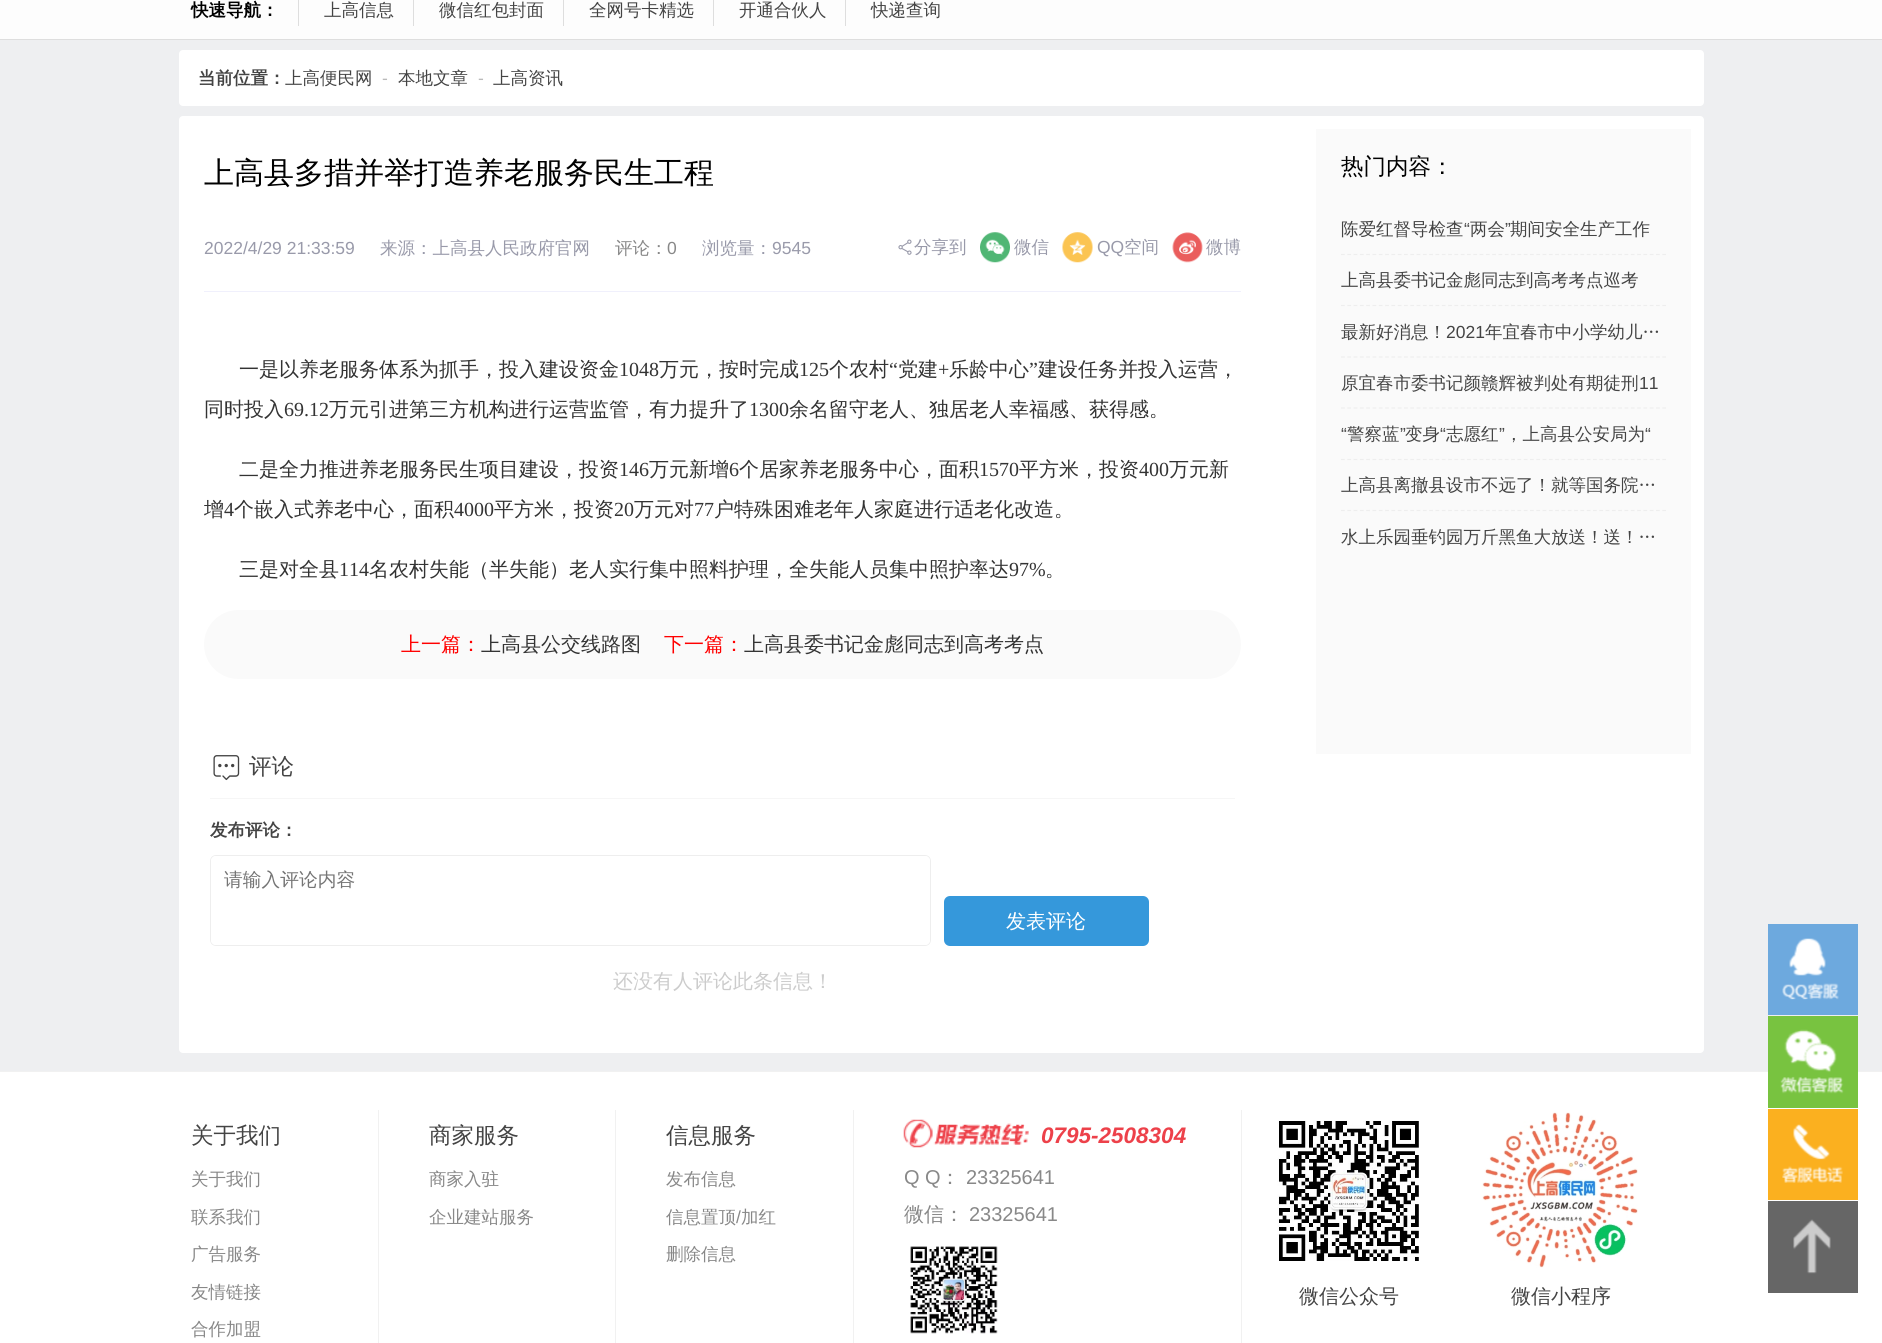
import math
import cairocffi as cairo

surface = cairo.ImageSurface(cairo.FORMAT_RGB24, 1882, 1343)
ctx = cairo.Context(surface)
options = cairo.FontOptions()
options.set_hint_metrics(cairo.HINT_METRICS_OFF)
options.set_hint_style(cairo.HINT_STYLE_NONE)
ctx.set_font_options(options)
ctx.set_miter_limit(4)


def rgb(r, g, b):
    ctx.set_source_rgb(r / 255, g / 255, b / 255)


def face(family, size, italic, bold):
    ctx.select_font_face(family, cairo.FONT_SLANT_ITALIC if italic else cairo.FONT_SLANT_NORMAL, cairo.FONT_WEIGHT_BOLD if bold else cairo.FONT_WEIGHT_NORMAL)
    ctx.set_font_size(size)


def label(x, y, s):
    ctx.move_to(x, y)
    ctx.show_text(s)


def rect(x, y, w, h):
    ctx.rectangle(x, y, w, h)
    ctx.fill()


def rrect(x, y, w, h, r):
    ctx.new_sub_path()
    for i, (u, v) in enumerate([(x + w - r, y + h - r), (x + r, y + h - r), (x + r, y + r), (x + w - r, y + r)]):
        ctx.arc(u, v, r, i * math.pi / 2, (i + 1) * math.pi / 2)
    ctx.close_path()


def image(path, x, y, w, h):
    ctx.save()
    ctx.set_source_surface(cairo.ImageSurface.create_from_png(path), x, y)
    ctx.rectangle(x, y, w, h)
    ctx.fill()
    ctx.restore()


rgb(238, 239, 241)
ctx.paint()
rgb(253, 253, 253)
rect(0, 0, 1882, 39)
rgb(222, 222, 222)
rect(0, 39, 1882, 1)
rect(298, 0, 1, 26)
face('WenQuanYi Zen Hei', 17.5, 0, 1)
rgb(0, 0, 0)
label(191, 16, '快速导航：')
rgb(222, 222, 222)
rect(413, 0, 1, 26)
face('WenQuanYi Zen Hei Medium', 17.5, 0, 0)
rgb(68, 68, 68)
label(324, 16, '上高信息')
rgb(222, 222, 222)
rect(563, 0, 1, 26)
rgb(68, 68, 68)
label(439, 16, '微信红包封面')
rgb(222, 222, 222)
rect(713, 0, 1, 26)
rgb(68, 68, 68)
label(589, 16, '全网号卡精选')
rgb(222, 222, 222)
rect(845, 0, 1, 26)
rgb(68, 68, 68)
label(739, 16, '开通合伙人')
label(871, 16, '快递查询')
rgb(255, 255, 255)
rrect(179, 50, 1525, 56, 4)
ctx.fill()
face('WenQuanYi Zen Hei', 17.5, 0, 1)
rgb(68, 68, 68)
label(198, 84, '当前位置：')
face('WenQuanYi Zen Hei Medium', 17.5, 0, 0)
label(285, 84, '上高便民网')
face('Liberation Sans', 17.5, 0, 0)
rgb(186, 186, 186)
label(382, 84, '-')
face('WenQuanYi Zen Hei Medium', 17.5, 0, 0)
rgb(68, 68, 68)
label(398, 84, '本地文章')
face('Liberation Sans', 17.5, 0, 0)
rgb(186, 186, 186)
label(478, 84, '-')
face('WenQuanYi Zen Hei Medium', 17.5, 0, 0)
rgb(68, 68, 68)
label(493, 84, '上高资讯')
rgb(255, 255, 255)
rrect(179, 116, 1525, 937, 4)
ctx.fill()
face('WenQuanYi Zen Hei Medium', 30, 0, 0)
rgb(0, 0, 0)
label(204, 183, '上高县多措并举打造养老服务民生工程')
rgb(240, 240, 252)
rect(204, 291, 1037, 1)
face('Liberation Sans', 17.5, 0, 0)
rgb(153, 154, 170)
label(204, 254, '2022/4/29 21:33:59')
face('WenQuanYi Zen Hei Medium', 17.5, 0, 0)
label(380, 254, '来源：上高县人民政府官网')
rgb(136, 136, 136)
label(615, 254, '评论：')
face('Liberation Sans', 17.5, 0, 0)
label(667, 254, '0')
face('WenQuanYi Zen Hei Medium', 17.5, 0, 0)
rgb(153, 154, 170)
label(702, 254, '浏览量：')
face('Liberation Sans', 17.5, 0, 0)
label(772, 254, '9545')
image('image0.png', 898, 239, 14, 16)
face('WenQuanYi Zen Hei Medium', 17.5, 0, 0)
label(914, 253, '分享到')
image('image1.png', 980, 232, 30, 31)
label(1014, 253, '微信')
image('image2.png', 1062, 232, 31, 31)
face('Liberation Sans', 17.5, 0, 0)
label(1097, 253, 'QQ')
face('WenQuanYi Zen Hei Medium', 17.5, 0, 0)
label(1124, 253, '空间')
image('image3.png', 1172, 232, 31, 31)
label(1206, 253, '微博')
face('WenQuanYi Zen Hei Medium', 20, 0, 0)
rgb(51, 51, 51)
label(239, 376, '一是以养老服务体系为抓手，投入建设资金')
face('Liberation Serif', 20, 0, 0)
label(619, 376, '1048')
face('WenQuanYi Zen Hei Medium', 20, 0, 0)
label(659, 376, '万元，按时完成')
face('Liberation Serif', 20, 0, 0)
label(799, 376, '125')
face('WenQuanYi Zen Hei Medium', 20, 0, 0)
label(829, 376, '个农村')
face('Liberation Serif', 20, 0, 0)
label(889, 376, '“')
face('WenQuanYi Zen Hei Medium', 20, 0, 0)
label(898, 376, '党建')
face('Liberation Serif', 20, 0, 0)
label(938, 376, '+')
face('WenQuanYi Zen Hei Medium', 20, 0, 0)
label(949, 376, '乐龄中心')
face('Liberation Serif', 20, 0, 0)
label(1029, 376, '”')
face('WenQuanYi Zen Hei Medium', 20, 0, 0)
label(1038, 376, '建设任务并投入运营，')
label(204, 416, '同时投入')
face('Liberation Serif', 20, 0, 0)
label(284, 416, '69.12')
face('WenQuanYi Zen Hei Medium', 20, 0, 0)
label(329, 416, '万元引进第三方机构进行运营监管，有力提升了')
face('Liberation Serif', 20, 0, 0)
label(749, 416, '1300')
face('WenQuanYi Zen Hei Medium', 20, 0, 0)
label(789, 416, '余名留守老人、独居老人幸福感、获得感。')
label(239, 476, '二是全力推进养老服务民生项目建设，投资')
face('Liberation Serif', 20, 0, 0)
label(619, 476, '146')
face('WenQuanYi Zen Hei Medium', 20, 0, 0)
label(649, 476, '万元新增')
face('Liberation Serif', 20, 0, 0)
label(729, 476, '6')
face('WenQuanYi Zen Hei Medium', 20, 0, 0)
label(739, 476, '个居家养老服务中心，面积')
face('Liberation Serif', 20, 0, 0)
label(979, 476, '1570')
face('WenQuanYi Zen Hei Medium', 20, 0, 0)
label(1019, 476, '平方米，投资')
face('Liberation Serif', 20, 0, 0)
label(1139, 476, '400')
face('WenQuanYi Zen Hei Medium', 20, 0, 0)
label(1169, 476, '万元新')
label(204, 516, '增')
face('Liberation Serif', 20, 0, 0)
label(224, 516, '4')
face('WenQuanYi Zen Hei Medium', 20, 0, 0)
label(234, 516, '个嵌入式养老中心，面积')
face('Liberation Serif', 20, 0, 0)
label(454, 516, '4000')
face('WenQuanYi Zen Hei Medium', 20, 0, 0)
label(494, 516, '平方米，投资')
face('Liberation Serif', 20, 0, 0)
label(614, 516, '20')
face('WenQuanYi Zen Hei Medium', 20, 0, 0)
label(634, 516, '万元对')
face('Liberation Serif', 20, 0, 0)
label(694, 516, '77')
face('WenQuanYi Zen Hei Medium', 20, 0, 0)
label(714, 516, '户特殊困难老年人家庭进行适老化改造。')
label(239, 576, '三是对全县')
face('Liberation Serif', 20, 0, 0)
label(339, 576, '114')
face('WenQuanYi Zen Hei Medium', 20, 0, 0)
label(369, 576, '名农村失能（半失能）老人实行集中照料护理，全失能人员集中照护率达')
face('Liberation Serif', 20, 0, 0)
label(1009, 576, '97%')
face('WenQuanYi Zen Hei Medium', 20, 0, 0)
label(1045, 576, '。')
rgb(250, 250, 250)
rrect(204, 610, 1037, 69, 34.5)
ctx.fill()
rgb(255, 0, 0)
label(401, 651, '上一篇：')
rgb(51, 51, 51)
label(481, 651, '上高县公交线路图')
rgb(255, 0, 0)
label(664, 651, '下一篇：')
rgb(51, 51, 51)
label(744, 651, '上高县委书记金彪同志到高考考点')
rgb(246, 246, 246)
rect(210, 798, 1025, 1)
image('image4.png', 213, 755, 27, 26)
face('WenQuanYi Zen Hei Medium', 22.5, 0, 0)
rgb(68, 68, 68)
label(249, 774, '评论')
face('WenQuanYi Zen Hei', 17.5, 0, 1)
label(210, 836, '发布评论：')
rrect(210.5, 855.5, 720, 90, 5.5)
rgb(238, 238, 238)
ctx.set_line_width(1)
ctx.stroke()
rgb(255, 255, 255)
rrect(211, 856, 719, 89, 5)
ctx.fill()
face('WenQuanYi Zen Hei Medium', 18.75, 0, 0)
rgb(117, 117, 117)
label(224, 886, '请输入评论内容')
rgb(53, 152, 219)
rrect(944, 896, 205, 50, 6)
ctx.fill()
face('WenQuanYi Zen Hei Medium', 20, 0, 0)
rgb(255, 255, 255)
label(1006, 928, '发表评论')
rgb(204, 204, 204)
label(613, 988, '还没有人评论此条信息！')
rgb(250, 250, 250)
rect(1316, 129, 375, 625)
face('WenQuanYi Zen Hei Medium', 22.5, 0, 0)
rgb(0, 0, 0)
label(1341, 174, '热门内容：')
ctx.new_path()
ctx.move_to(1341, 254.5)
ctx.line_to(1666, 254.5)
rgb(238, 238, 238)
ctx.set_line_width(1.2)
ctx.set_dash([3.75, 2.55])
ctx.stroke()
face('WenQuanYi Zen Hei Medium', 17.5, 0, 0)
rgb(68, 68, 68)
label(1341, 235, '陈爱红督导检查')
face('Liberation Sans', 17.5, 0, 0)
label(1464, 235, '“')
face('WenQuanYi Zen Hei Medium', 17.5, 0, 0)
label(1470, 235, '两会')
face('Liberation Sans', 17.5, 0, 0)
label(1505, 235, '”')
face('WenQuanYi Zen Hei Medium', 17.5, 0, 0)
label(1510, 235, '期间安全生产工作')
ctx.new_path()
ctx.move_to(1341, 305.5)
ctx.line_to(1666, 305.5)
rgb(238, 238, 238)
ctx.stroke()
rgb(68, 68, 68)
label(1341, 286, '上高县委书记金彪同志到高考考点巡考')
ctx.new_path()
ctx.move_to(1341, 357)
ctx.line_to(1666, 357)
rgb(238, 238, 238)
ctx.stroke()
rgb(68, 68, 68)
label(1341, 338, '最新好消息！')
face('Liberation Sans', 17.5, 0, 0)
label(1446, 338, '2021')
face('WenQuanYi Zen Hei Medium', 17.5, 0, 0)
label(1485, 338, '年宜春市中小学幼儿…')
ctx.new_path()
ctx.move_to(1341, 408)
ctx.line_to(1666, 408)
rgb(238, 238, 238)
ctx.stroke()
rgb(68, 68, 68)
label(1341, 389, '原宜春市委书记颜赣辉被判处有期徒刑')
face('Liberation Sans', 17.5, 0, 0)
label(1639, 389, '11')
ctx.new_path()
ctx.move_to(1341, 459.5)
ctx.line_to(1666, 459.5)
rgb(238, 238, 238)
ctx.stroke()
rgb(68, 68, 68)
label(1341, 440, '“')
face('WenQuanYi Zen Hei Medium', 17.5, 0, 0)
label(1347, 440, '警察蓝')
face('Liberation Sans', 17.5, 0, 0)
label(1400, 440, '”')
face('WenQuanYi Zen Hei Medium', 17.5, 0, 0)
label(1405, 440, '变身')
face('Liberation Sans', 17.5, 0, 0)
label(1440, 440, '“')
face('WenQuanYi Zen Hei Medium', 17.5, 0, 0)
label(1446, 440, '志愿红')
face('Liberation Sans', 17.5, 0, 0)
label(1499, 440, '”')
face('WenQuanYi Zen Hei Medium', 17.5, 0, 0)
label(1505, 440, '，上高县公安局为')
face('Liberation Sans', 17.5, 0, 0)
label(1645, 440, '“')
ctx.new_path()
ctx.move_to(1341, 510.5)
ctx.line_to(1666, 510.5)
rgb(238, 238, 238)
ctx.stroke()
face('WenQuanYi Zen Hei Medium', 17.5, 0, 0)
rgb(68, 68, 68)
label(1341, 491, '上高县离撤县设市不远了！就等国务院…')
label(1341, 543, '水上乐园垂钓园万斤黑鱼大放送！送！…')
rgb(255, 255, 255)
rect(0, 1072, 1882, 271)
rgb(241, 241, 241)
rect(0, 1071, 1882, 1)
rect(378, 1110, 1, 233)
face('WenQuanYi Zen Hei Medium', 22.5, 0, 0)
rgb(68, 68, 68)
label(191, 1143, '关于我们')
face('WenQuanYi Zen Hei Medium', 17.5, 0, 0)
rgb(136, 136, 136)
label(191, 1185, '关于我们')
label(191, 1223, '联系我们')
label(191, 1260, '广告服务')
label(191, 1298, '友情链接')
label(191, 1335, '合作加盟')
rgb(241, 241, 241)
rect(615, 1110, 1, 233)
face('WenQuanYi Zen Hei Medium', 22.5, 0, 0)
rgb(68, 68, 68)
label(429, 1143, '商家服务')
face('WenQuanYi Zen Hei Medium', 17.5, 0, 0)
rgb(136, 136, 136)
label(429, 1185, '商家入驻')
label(429, 1223, '企业建站服务')
rgb(241, 241, 241)
rect(853, 1110, 1, 233)
face('WenQuanYi Zen Hei Medium', 22.5, 0, 0)
rgb(68, 68, 68)
label(666, 1143, '信息服务')
face('WenQuanYi Zen Hei Medium', 17.5, 0, 0)
rgb(136, 136, 136)
label(666, 1185, '发布信息')
label(666, 1223, '信息置顶')
face('Liberation Sans', 17.5, 0, 0)
label(736, 1223, '/')
face('WenQuanYi Zen Hei Medium', 17.5, 0, 0)
label(741, 1223, '加红')
label(666, 1260, '删除信息')
rgb(241, 241, 241)
rect(1241, 1110, 1, 233)
image('image5.png', 903, 1119, 126, 29)
face('Liberation Sans', 22.5, 1, 1)
rgb(237, 65, 74)
label(1041, 1143, '0795-2508304')
face('Liberation Sans', 20, 0, 0)
rgb(136, 136, 136)
label(904, 1184, 'Q Q')
face('WenQuanYi Zen Hei Medium', 20, 0, 0)
label(940, 1184, '：')
face('Liberation Sans', 20, 0, 0)
label(966, 1184, '23325641')
face('WenQuanYi Zen Hei Medium', 20, 0, 0)
label(904, 1221, '微信：')
face('Liberation Sans', 20, 0, 0)
label(969, 1221, '23325641')
image('image6.png', 910, 1246, 88, 88)
image('image7.png', 1277, 1120, 142, 141)
face('WenQuanYi Zen Hei Medium', 20, 0, 0)
rgb(68, 68, 68)
label(1299, 1303, '微信公众号')
image('image8.png', 1482, 1112, 156, 156)
label(1511, 1303, '微信小程序')
rgb(109, 169, 222)
rect(1768, 924, 90, 91)
image('image9.png', 1782, 938, 57, 62)
rgb(120, 195, 64)
rect(1768, 1016, 90, 92)
image('image10.png', 1780, 1029, 64, 65)
rgb(251, 176, 31)
rect(1768, 1109, 90, 91)
image('image11.png', 1782, 1124, 61, 59)
rgb(102, 102, 102)
rect(1768, 1201, 90, 92)
image('image12.png', 1793, 1219, 38, 55)
surface.write_to_png('render.png')
